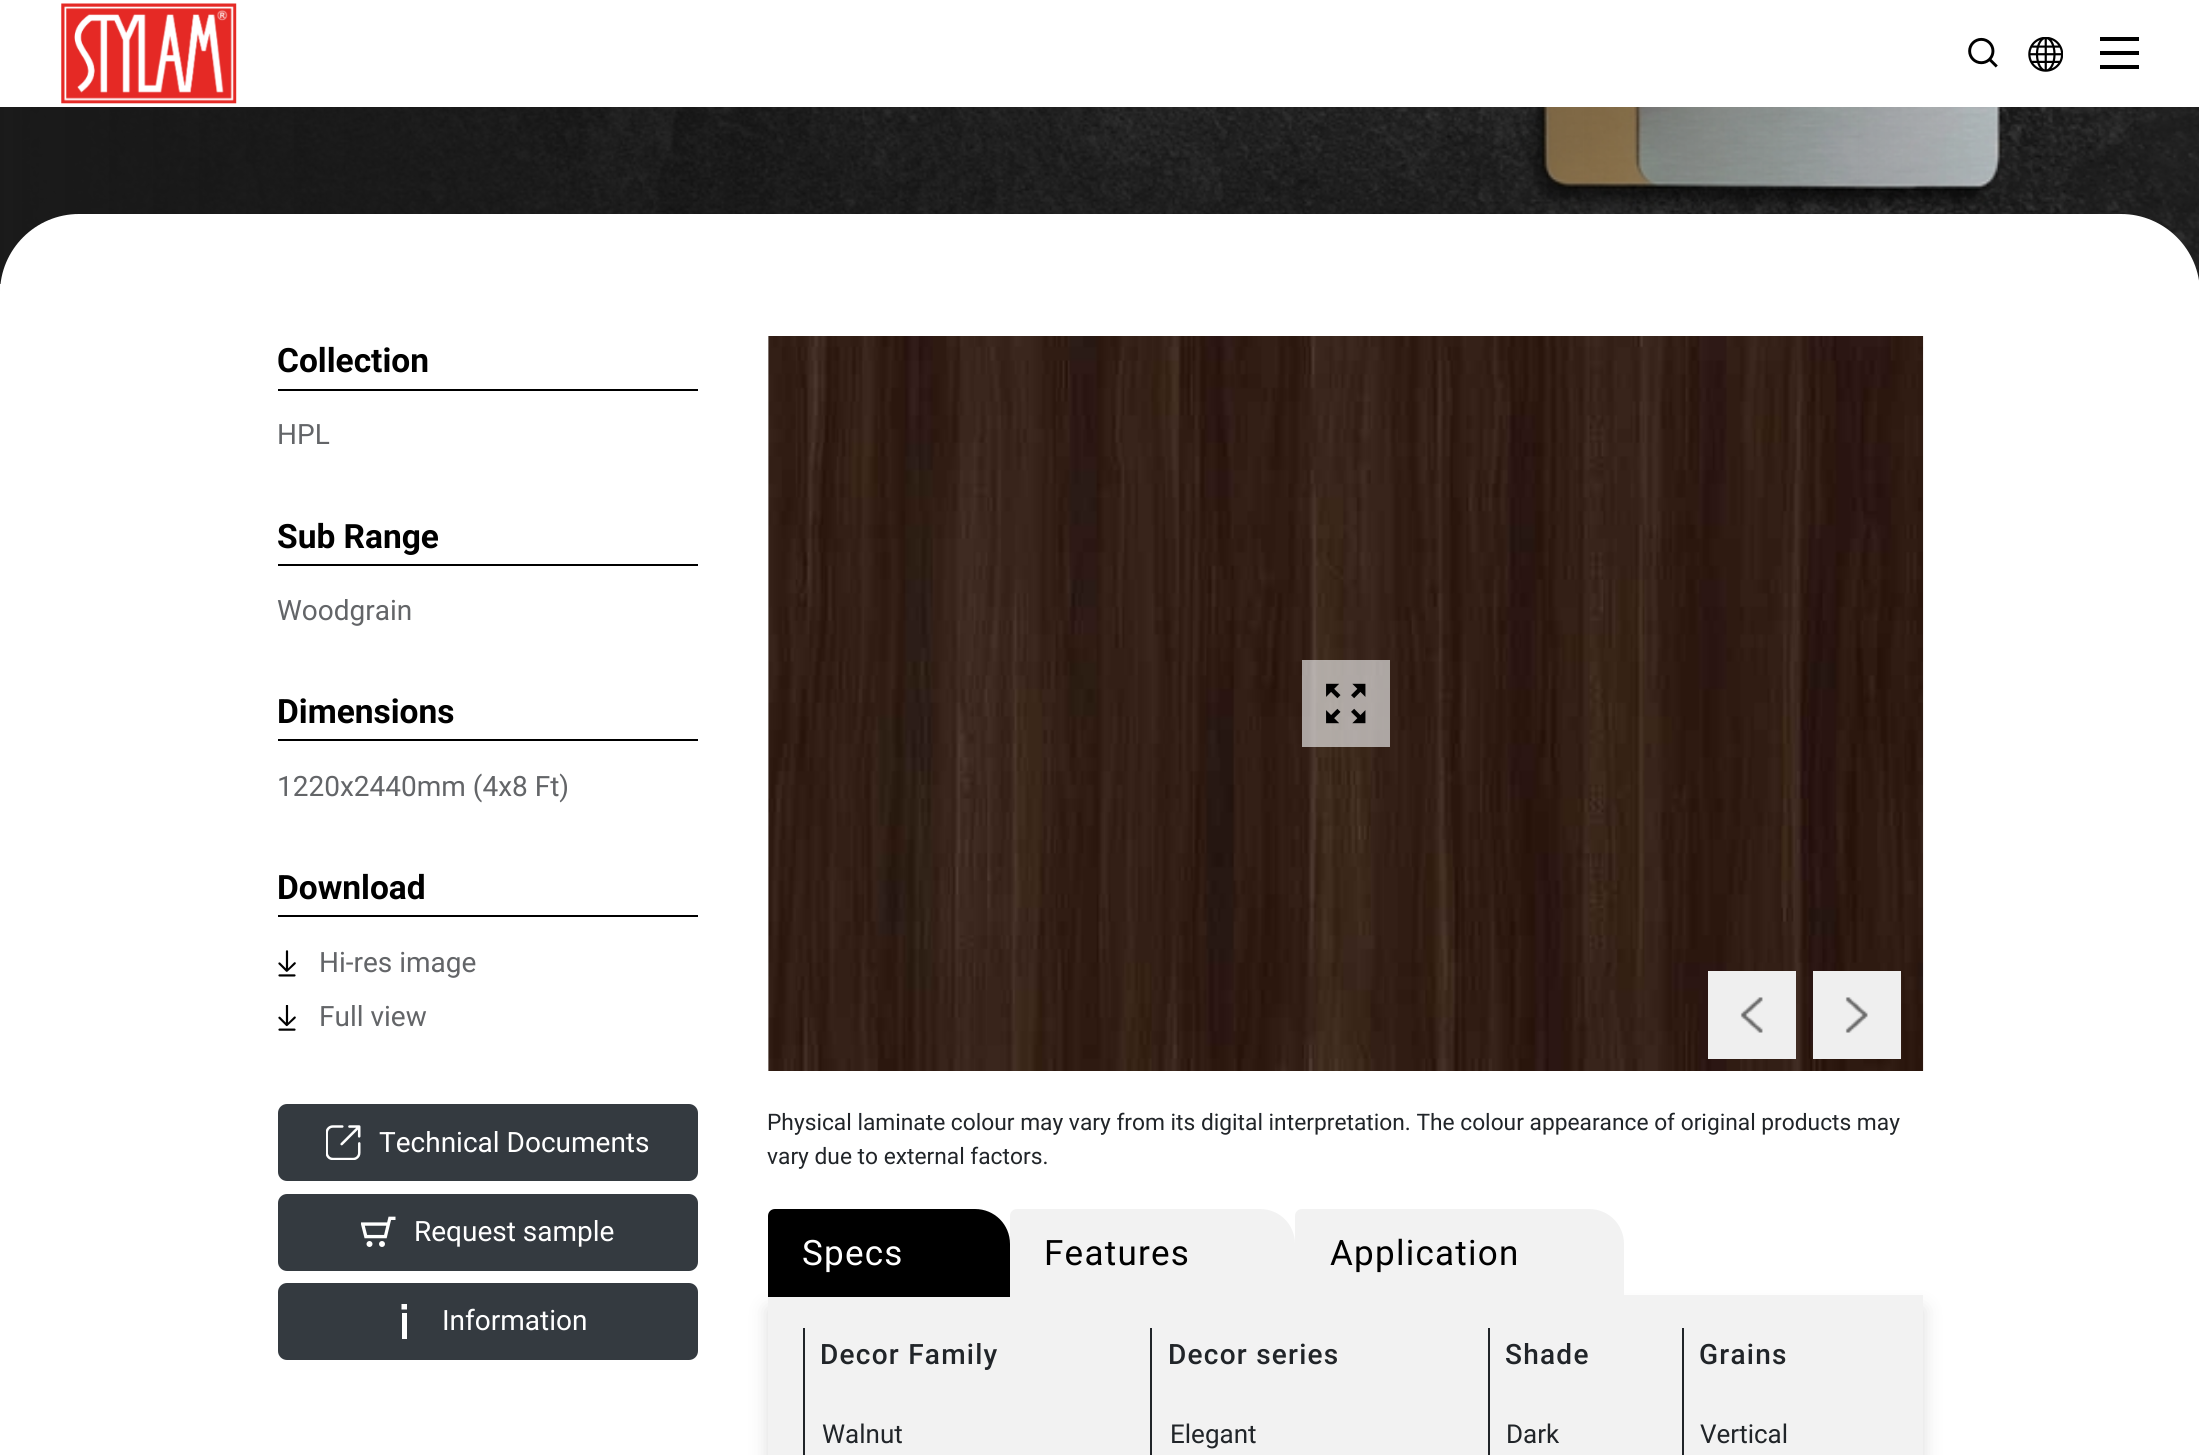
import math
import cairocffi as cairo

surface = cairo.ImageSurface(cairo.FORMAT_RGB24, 2199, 1455)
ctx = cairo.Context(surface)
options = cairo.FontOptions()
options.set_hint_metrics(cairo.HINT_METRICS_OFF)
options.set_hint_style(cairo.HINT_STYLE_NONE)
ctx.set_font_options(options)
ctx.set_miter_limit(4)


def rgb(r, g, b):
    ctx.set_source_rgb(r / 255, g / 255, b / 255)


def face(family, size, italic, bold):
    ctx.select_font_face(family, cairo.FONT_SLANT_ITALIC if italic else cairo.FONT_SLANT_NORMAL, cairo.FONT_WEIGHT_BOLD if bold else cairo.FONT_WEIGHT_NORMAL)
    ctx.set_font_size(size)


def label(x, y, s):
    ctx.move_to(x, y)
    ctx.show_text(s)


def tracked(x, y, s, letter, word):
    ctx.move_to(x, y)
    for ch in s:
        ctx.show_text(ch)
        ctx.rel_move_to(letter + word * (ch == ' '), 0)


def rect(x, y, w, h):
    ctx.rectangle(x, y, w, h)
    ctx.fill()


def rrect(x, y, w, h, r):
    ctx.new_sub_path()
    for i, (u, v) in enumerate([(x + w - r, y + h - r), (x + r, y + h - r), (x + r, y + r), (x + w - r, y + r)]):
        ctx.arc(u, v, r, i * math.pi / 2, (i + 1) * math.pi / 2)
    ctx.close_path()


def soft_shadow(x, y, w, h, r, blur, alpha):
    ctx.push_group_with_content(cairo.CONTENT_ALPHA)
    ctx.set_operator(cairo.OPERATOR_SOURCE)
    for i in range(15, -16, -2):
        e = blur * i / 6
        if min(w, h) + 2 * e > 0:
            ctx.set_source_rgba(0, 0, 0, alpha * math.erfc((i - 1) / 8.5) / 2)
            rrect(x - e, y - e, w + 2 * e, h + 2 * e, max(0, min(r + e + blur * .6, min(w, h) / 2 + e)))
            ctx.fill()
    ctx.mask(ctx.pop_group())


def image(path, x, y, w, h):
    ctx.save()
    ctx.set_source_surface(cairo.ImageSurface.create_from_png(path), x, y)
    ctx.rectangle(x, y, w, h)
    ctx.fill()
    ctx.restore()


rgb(245, 245, 245)
ctx.paint()
image('image0.png', 13, 107, 2186, 174)
gradient = cairo.LinearGradient(0, -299, 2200, -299)
gradient.add_color_stop_rgba(0, 0.102, 0.102, 0.102, 1)
gradient.add_color_stop_rgba(0.38, 0.063, 0.063, 0.063, 0.62)
gradient.add_color_stop_rgba(1, 0.063, 0.063, 0.063, 0)
ctx.set_source(gradient)
rect(0, 107, 2153, 177)
rgb(0, 0, 0)
soft_shadow(403, -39, 203, 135, 12, 9, 1)
rgb(255, 255, 255)
rect(0, 0, 2199, 107)
image('image1.png', 61, 3, 176, 101)
image('image2.png', 1968, 37, 30, 31)
image('image3.png', 2028, 37, 35, 35)
rgb(0, 0, 0)
rect(2100, 51, 39, 4)
rect(2100, 37, 39, 4)
rect(2100, 65, 39, 4)
rgb(255, 255, 255)
ctx.new_path()
ctx.move_to(79, 214)
ctx.line_to(2121, 214)
ctx.curve_to(2164.5, 214, 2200, 249.5, 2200, 293)
ctx.line_to(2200, 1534)
ctx.line_to(0, 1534)
ctx.line_to(0, 293)
ctx.curve_to(0, 249.5, 35.5, 214, 79, 214)
ctx.close_path()
ctx.fill()
rgb(0, 0, 0)
rect(278, 389, 420, 2)
face('Roboto', 33.5, 0, 1)
label(277, 372, 'Collection')
face('Roboto', 28, 0, 0)
rgb(99, 101, 104)
label(277, 444, 'HPL')
rgb(0, 0, 0)
rect(278, 564, 420, 2)
face('Roboto', 33.5, 0, 1)
label(277, 548, 'Sub Range')
face('Roboto', 28, 0, 0)
rgb(99, 101, 104)
label(277, 620, 'Woodgrain')
rgb(0, 0, 0)
rect(278, 739, 420, 2)
face('Roboto', 33.5, 0, 1)
label(277, 723, 'Dimensions')
face('Roboto', 28, 0, 0)
rgb(99, 101, 104)
label(277, 796, '1220x2440mm (4x8 Ft)')
rgb(0, 0, 0)
rect(278, 915, 420, 2)
face('Roboto', 33.5, 0, 1)
label(277, 899, 'Download')
image('image4.png', 278, 950, 18, 27)
face('Roboto', 28, 0, 0)
rgb(99, 101, 104)
label(319, 972, 'Hi-res image')
image('image5.png', 278, 1005, 18, 26)
label(319, 1026, 'Full view')
rgb(52, 58, 64)
rrect(278, 1104, 420, 77, 9)
ctx.fill()
image('image6.png', 326, 1125, 35, 35)
rgb(255, 255, 255)
label(379, 1152, 'Technical Documents')
rgb(52, 58, 64)
rrect(278, 1194, 420, 77, 9)
ctx.fill()
image('image7.png', 361, 1216, 35, 31)
rgb(255, 255, 255)
label(414, 1241, 'Request sample')
rgb(52, 58, 64)
rrect(278, 1283, 420, 77, 9)
ctx.fill()
rgb(255, 255, 255)
ctx.new_path()
ctx.move_to(407, 1309.5)
ctx.line_to(401.5, 1309.5)
ctx.line_to(401.5, 1304)
ctx.line_to(407, 1304)
ctx.close_path()
ctx.fill()
rect(402, 1313, 5, 26)
label(442, 1330, 'Information')
rgb(222, 222, 222)
rect(768, 336, 1, 735)
image('image8.png', 768, 336, 1156, 735)
ctx.set_source_rgba(0.933, 0.933, 0.933, 0.65)
rect(1302, 660, 88, 87)
image('image9.png', 1326, 683, 40, 41)
rgb(239, 239, 239)
rect(1708, 971, 88, 88)
image('image10.png', 1740, 997, 23, 36)
rect(1813, 971, 88, 88)
image('image11.png', 1845, 997, 23, 36)
face('Roboto', 22.75, 0, 0)
rgb(33, 37, 41)
label(767, 1130, 'Physical laminate colour may vary from its digital interpretation. The colour appearance of original products may')
label(767, 1164, 'vary due to external factors.')
rgb(219, 219, 219)
soft_shadow(768, 1309, 1155, 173, 0, 9, 1)
rgb(242, 242, 242)
rect(768, 1295, 1155, 160)
rgb(0, 0, 0)
ctx.new_path()
ctx.move_to(775, 1209)
ctx.line_to(975, 1209)
ctx.curve_to(994.5, 1209, 1010, 1224.5, 1010, 1244)
ctx.line_to(1010, 1297)
ctx.line_to(768, 1297)
ctx.line_to(768, 1216)
ctx.curve_to(768, 1212, 771, 1209, 775, 1209)
ctx.close_path()
ctx.fill()
face('Roboto', 35, 0, 0)
rgb(255, 255, 255)
tracked(802, 1265, 'Specs', 1.25, 0)
rgb(242, 242, 242)
ctx.new_path()
ctx.move_to(1017, 1209)
ctx.line_to(1260, 1209)
ctx.curve_to(1279.5, 1209, 1295, 1224.5, 1295, 1244)
ctx.line_to(1295, 1297)
ctx.line_to(1010, 1297)
ctx.line_to(1010, 1216)
ctx.curve_to(1010, 1212, 1013, 1209, 1017, 1209)
ctx.close_path()
ctx.fill()
rgb(0, 0, 0)
tracked(1044, 1265, 'Features', 1.25, 0)
rgb(242, 242, 242)
ctx.new_path()
ctx.move_to(1302, 1209)
ctx.line_to(1589, 1209)
ctx.curve_to(1608.5, 1209, 1624, 1224.5, 1624, 1244)
ctx.line_to(1624, 1297)
ctx.line_to(1295, 1297)
ctx.line_to(1295, 1216)
ctx.curve_to(1295, 1212, 1298, 1209, 1302, 1209)
ctx.close_path()
ctx.fill()
rgb(0, 0, 0)
tracked(1330, 1265, 'Application', 1.25, 0)
face('Roboto Medium', 28, 0, 0)
rgb(33, 37, 41)
tracked(820, 1364, 'Decor Family', 1.25, 0)
tracked(1168, 1364, 'Decor series', 1.25, 0)
tracked(1505, 1364, 'Shade', 1.25, 0)
tracked(1699, 1364, 'Grains', 1.25, 0)
rect(803, 1328, 2, 127)
face('Roboto', 26, 0, 0)
label(822, 1443, 'Walnut')
rect(1150, 1328, 2, 127)
label(1170, 1443, 'Elegant')
rect(1488, 1328, 2, 127)
label(1506, 1443, 'Dark')
rect(1682, 1328, 2, 127)
label(1700, 1443, 'Vertical')
surface.write_to_png('render.png')
